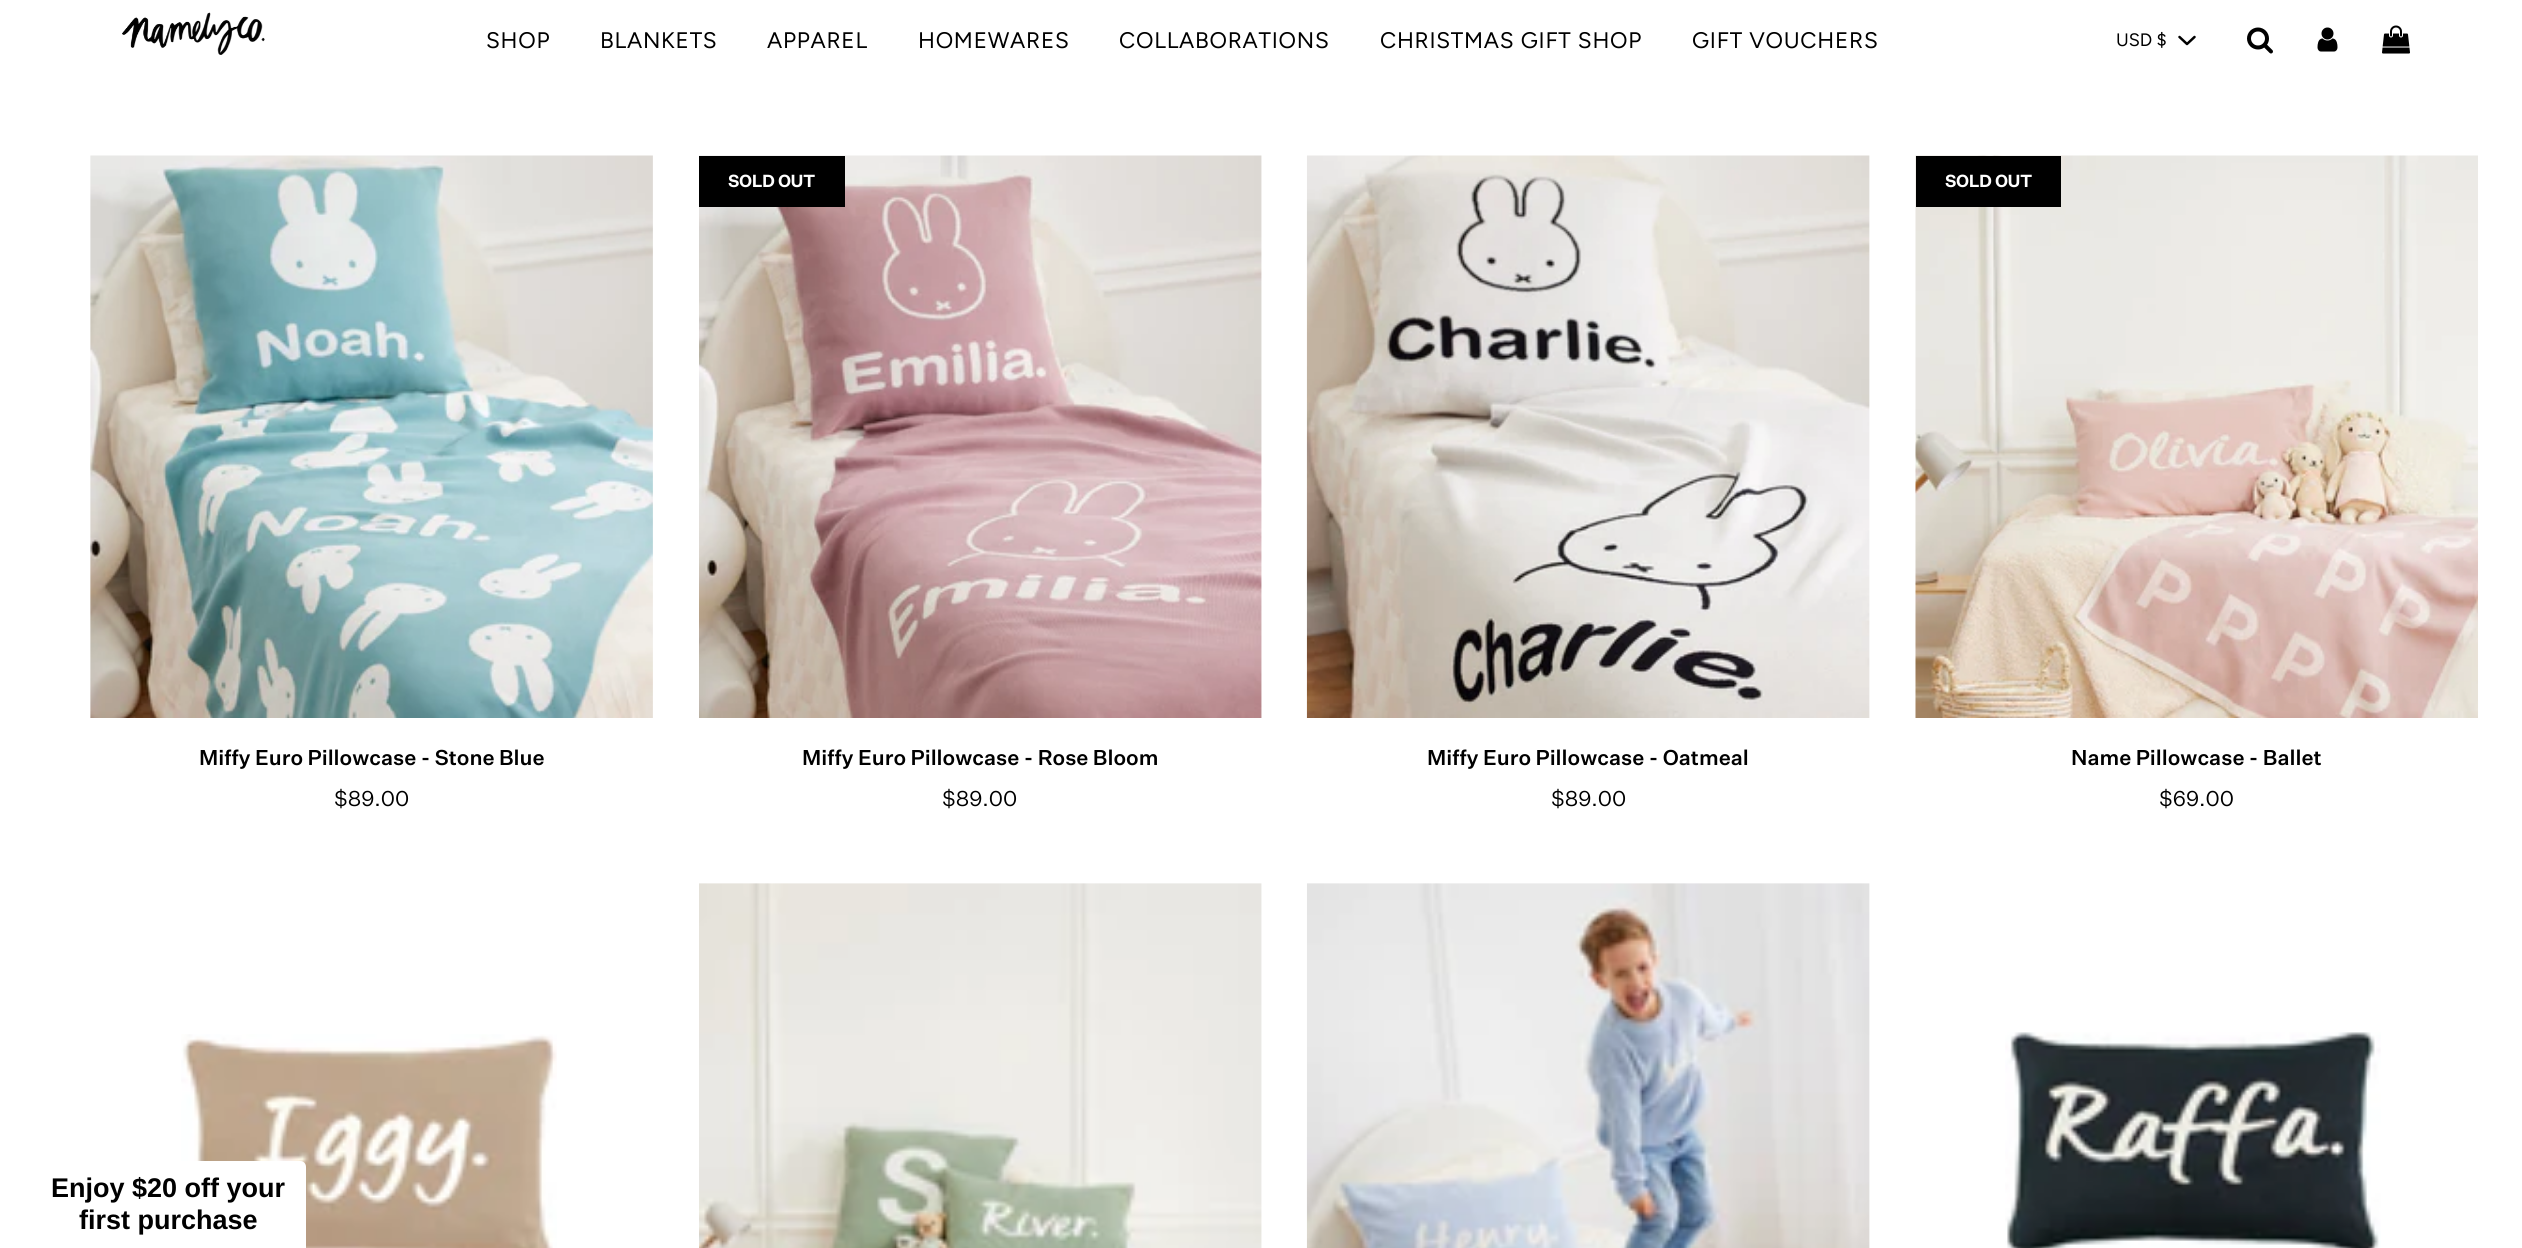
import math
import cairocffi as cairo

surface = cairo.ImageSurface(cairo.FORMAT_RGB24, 2522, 1248)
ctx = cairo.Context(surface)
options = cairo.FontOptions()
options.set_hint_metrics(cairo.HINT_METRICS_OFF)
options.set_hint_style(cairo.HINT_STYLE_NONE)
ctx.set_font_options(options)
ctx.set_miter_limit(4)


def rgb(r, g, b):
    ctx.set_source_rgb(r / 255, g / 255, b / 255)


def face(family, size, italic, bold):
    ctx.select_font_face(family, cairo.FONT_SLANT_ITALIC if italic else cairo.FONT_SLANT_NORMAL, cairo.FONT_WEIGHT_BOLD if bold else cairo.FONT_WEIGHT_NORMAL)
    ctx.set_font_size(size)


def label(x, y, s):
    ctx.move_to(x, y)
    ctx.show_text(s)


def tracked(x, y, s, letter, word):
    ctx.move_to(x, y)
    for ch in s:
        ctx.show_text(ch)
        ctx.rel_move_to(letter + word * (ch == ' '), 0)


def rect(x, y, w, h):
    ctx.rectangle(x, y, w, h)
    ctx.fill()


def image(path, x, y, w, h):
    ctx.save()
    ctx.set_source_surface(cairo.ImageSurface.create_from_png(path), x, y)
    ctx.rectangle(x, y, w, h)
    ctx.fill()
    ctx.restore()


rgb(255, 255, 255)
ctx.paint()
image('image0.png', 122, 12, 143, 43)
face('Figtree', 22.5, 0, 0)
rgb(0, 0, 0)
tracked(486, 48, 'SHOP', 0.75, 0)
tracked(600, 48, 'BLANKETS', 0.75, 0)
tracked(767, 48, 'APPAREL', 0.75, 0)
tracked(918, 48, 'HOMEWARES', 0.75, 0)
tracked(1119, 48, 'COLLABORATIONS', 0.75, 0)
tracked(1380, 48, 'CHRISTMAS GIFT SHOP', 0.75, 0)
tracked(1692, 48, 'GIFT VOUCHERS', 0.75, 0)
face('Figtree', 18, 0, 0)
label(2116, 46, 'USD $')
ctx.new_path()
ctx.move_to(2179.5, 37)
ctx.line_to(2187, 44)
ctx.line_to(2194.5, 37)
ctx.set_line_width(2.5)
ctx.set_line_cap(cairo.LINE_CAP_ROUND)
ctx.set_line_join(cairo.LINE_JOIN_ROUND)
ctx.stroke()
image('image1.png', 2247, 27, 26, 27)
image('image2.png', 2317, 27, 21, 25)
image('image3.png', 2382, 25, 28, 29)
image('image4.png', 90, 155, 563, 563)
face('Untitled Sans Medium', 21, 0, 0)
label(199, 765, 'Miffy Euro Pillowcase - Stone Blue')
face('Untitled Sans', 21, 0, 0)
label(334, 806, '$89.00')
image('image5.png', 699, 155, 563, 563)
rect(699, 156, 146, 51)
face('Untitled Sans', 16.5, 0, 1)
rgb(255, 255, 255)
label(728, 187, 'SOLD OUT')
face('Untitled Sans Medium', 21, 0, 0)
rgb(0, 0, 0)
label(802, 765, 'Miffy Euro Pillowcase - Rose Bloom')
face('Untitled Sans', 21, 0, 0)
label(942, 806, '$89.00')
image('image6.png', 1306, 155, 564, 563)
face('Untitled Sans Medium', 21, 0, 0)
label(1427, 765, 'Miffy Euro Pillowcase - Oatmeal')
face('Untitled Sans', 21, 0, 0)
label(1551, 806, '$89.00')
image('image7.png', 1915, 155, 563, 563)
rect(1916, 156, 145, 51)
face('Untitled Sans', 16.5, 0, 1)
rgb(255, 255, 255)
label(1945, 187, 'SOLD OUT')
face('Untitled Sans Medium', 21, 0, 0)
rgb(0, 0, 0)
label(2071, 765, 'Name Pillowcase - Ballet')
face('Untitled Sans', 21, 0, 0)
label(2159, 806, '$69.00')
image('image8.png', 181, 1034, 376, 214)
image('image9.png', 699, 883, 563, 365)
image('image10.png', 1306, 883, 564, 365)
image('image11.png', 2005, 1032, 376, 216)
rgb(255, 255, 255)
ctx.new_path()
ctx.move_to(36, 1161)
ctx.line_to(300, 1161)
ctx.curve_to(303.5, 1161, 306, 1163.5, 306, 1167)
ctx.line_to(306, 1248)
ctx.line_to(30, 1248)
ctx.line_to(30, 1167)
ctx.curve_to(30, 1163.5, 32.5, 1161, 36, 1161)
ctx.close_path()
ctx.fill()
face('Liberation Sans', 27, 0, 1)
rgb(0, 0, 0)
label(51, 1197, 'Enjoy $20 off your')
label(79, 1229, 'first purchase')
surface.write_to_png('render.png')
